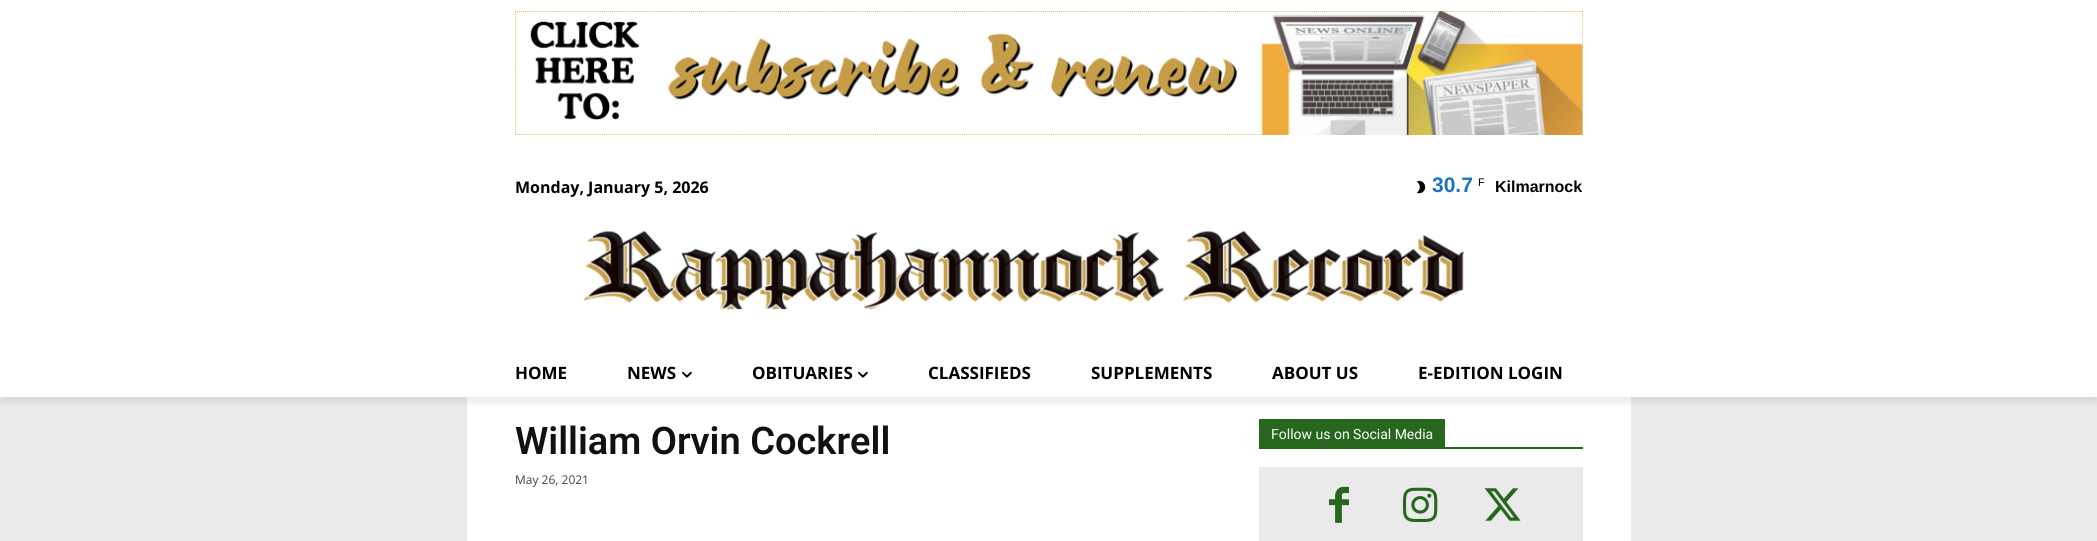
import math
import cairocffi as cairo

surface = cairo.ImageSurface(cairo.FORMAT_RGB24, 2097, 541)
ctx = cairo.Context(surface)
options = cairo.FontOptions()
options.set_hint_metrics(cairo.HINT_METRICS_OFF)
options.set_hint_style(cairo.HINT_STYLE_NONE)
ctx.set_font_options(options)
ctx.set_miter_limit(4)


def rgb(r, g, b):
    ctx.set_source_rgb(r / 255, g / 255, b / 255)


def face(family, size, italic, bold):
    ctx.select_font_face(family, cairo.FONT_SLANT_ITALIC if italic else cairo.FONT_SLANT_NORMAL, cairo.FONT_WEIGHT_BOLD if bold else cairo.FONT_WEIGHT_NORMAL)
    ctx.set_font_size(size)


def label(x, y, s):
    ctx.move_to(x, y)
    ctx.show_text(s)


def rect(x, y, w, h):
    ctx.rectangle(x, y, w, h)
    ctx.fill()


def rrect(x, y, w, h, r):
    ctx.new_sub_path()
    for i, (u, v) in enumerate([(x + w - r, y + h - r), (x + r, y + h - r), (x + r, y + r), (x + w - r, y + r)]):
        ctx.arc(u, v, r, i * math.pi / 2, (i + 1) * math.pi / 2)
    ctx.close_path()


def soft_shadow(x, y, w, h, r, blur, alpha):
    ctx.push_group_with_content(cairo.CONTENT_ALPHA)
    ctx.set_operator(cairo.OPERATOR_SOURCE)
    for i in range(15, -16, -2):
        e = blur * i / 6
        if min(w, h) + 2 * e > 0:
            ctx.set_source_rgba(0, 0, 0, alpha * math.erfc((i - 1) / 8.5) / 2)
            rrect(x - e, y - e, w + 2 * e, h + 2 * e, max(0, min(r + e + blur * .6, min(w, h) / 2 + e)))
            ctx.fill()
    ctx.mask(ctx.pop_group())


def image(path, x, y, w, h):
    ctx.save()
    ctx.set_source_surface(cairo.ImageSurface.create_from_png(path), x, y)
    ctx.rectangle(x, y, w, h)
    ctx.fill()
    ctx.restore()


rgb(234, 234, 234)
ctx.paint()
rgb(255, 255, 255)
rect(0, 0, 2097, 397)
image('image0.png', 515, 11, 1068, 124)
image('image1.png', 1416, 180, 10, 14)
image('image2.png', 583, 230, 882, 80)
rect(467, 397, 1164, 144)
ctx.save()
ctx.rectangle(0, 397, 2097, 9)
ctx.clip()
rgb(0, 0, 0)
soft_shadow(1, 6, 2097, 397, 0, 4, 0.08)
ctx.restore()
face('Open Sans', 16, 0, 1)
rgb(0, 0, 0)
label(515, 193, 'Monday, January 5, 2026')
face('Liberation Sans', 21, 0, 1)
rgb(30, 115, 190)
label(1432, 192, '30.7')
face('Liberation Sans', 11, 0, 0)
rgb(0, 0, 0)
label(1478, 186, 'F')
face('Liberation Sans', 16, 0, 1)
label(1495, 192, 'Kilmarnock')
face('Open Sans', 17, 0, 1)
label(515, 379, 'HOME')
label(627, 379, 'NEWS')
image('image3.png', 682, 371, 10, 7)
label(752, 379, 'OBITUARIES')
image('image3.png', 858, 371, 10, 7)
label(928, 379, 'CLASSIFIEDS')
label(1091, 379, 'SUPPLEMENTS')
label(1272, 379, 'ABOUT US')
label(1418, 379, 'E-EDITION LOGIN')
face('Roboto SemiBold', 38, 0, 0)
rgb(17, 17, 17)
label(515, 454, 'William Orvin Cockrell')
face('Open Sans', 12, 0, 0)
rgb(68, 68, 68)
label(515, 484, 'May 26, 2021')
rgb(38, 102, 29)
rect(1259, 447, 324, 2)
rect(1259, 419, 186, 28)
face('Roboto', 14, 0, 0)
rgb(255, 255, 255)
label(1271, 439, 'Follow us on Social Media')
rgb(234, 234, 234)
rect(1259, 467, 324, 74)
image('image4.png', 1329, 486, 20, 37)
image('image5.png', 1403, 487, 35, 35)
image('image6.png', 1484, 488, 37, 33)
surface.write_to_png('render.png')
